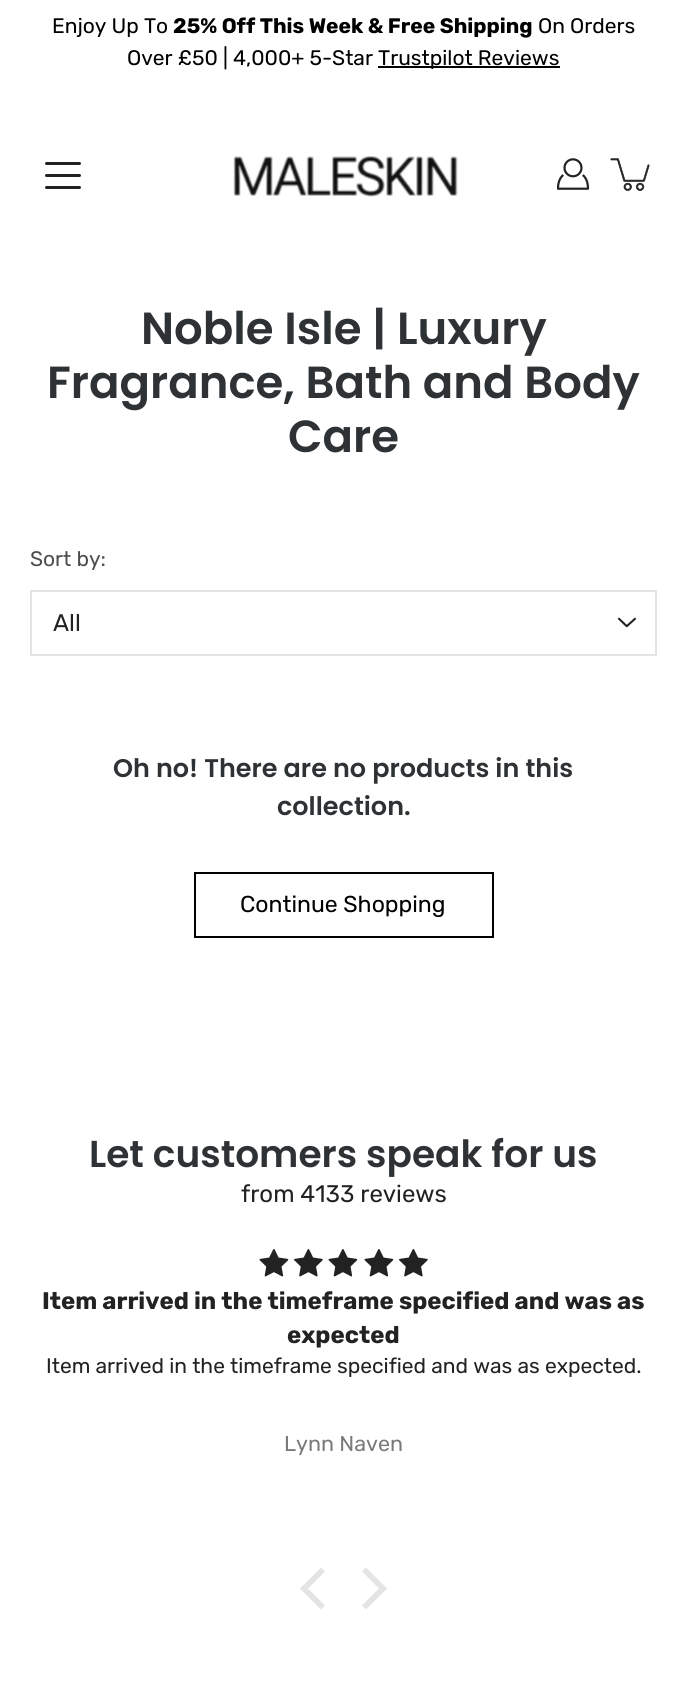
import math
import cairocffi as cairo

surface = cairo.ImageSurface(cairo.FORMAT_RGB24, 686, 1686)
ctx = cairo.Context(surface)
options = cairo.FontOptions()
options.set_hint_metrics(cairo.HINT_METRICS_OFF)
options.set_hint_style(cairo.HINT_STYLE_NONE)
ctx.set_font_options(options)
ctx.set_miter_limit(4)


def rgb(r, g, b):
    ctx.set_source_rgb(r / 255, g / 255, b / 255)


def face(family, size, italic, bold):
    ctx.select_font_face(family, cairo.FONT_SLANT_ITALIC if italic else cairo.FONT_SLANT_NORMAL, cairo.FONT_WEIGHT_BOLD if bold else cairo.FONT_WEIGHT_NORMAL)
    ctx.set_font_size(size)


def label(x, y, s):
    ctx.move_to(x, y)
    ctx.show_text(s)


def rect(x, y, w, h):
    ctx.rectangle(x, y, w, h)
    ctx.fill()


def rrect(x, y, w, h, r):
    ctx.new_sub_path()
    for i, (u, v) in enumerate([(x + w - r, y + h - r), (x + r, y + h - r), (x + r, y + r), (x + w - r, y + r)]):
        ctx.arc(u, v, r, i * math.pi / 2, (i + 1) * math.pi / 2)
    ctx.close_path()


def image(path, x, y, w, h):
    ctx.save()
    ctx.set_source_surface(cairo.ImageSurface.create_from_png(path), x, y)
    ctx.rectangle(x, y, w, h)
    ctx.fill()
    ctx.restore()


rgb(255, 255, 255)
ctx.paint()
face('Rubik', 21, 0, 0)
rgb(0, 0, 0)
label(52, 33, 'Enjoy Up To')
face('Rubik', 21, 0, 1)
label(173, 33, '25% Off This Week & Free Shipping')
face('Rubik', 21, 0, 0)
label(538, 33, 'On Orders')
label(127, 65, 'Over £50 | 4,000+ 5-Star')
rect(378, 66, 182, 2)
label(378, 65, 'Trustpilot Reviews')
image('image0.png', 233, 156, 225, 41)
rgb(34, 34, 34)
rrect(45, 174, 36, 3, 1.5)
ctx.fill()
rrect(45, 162, 36, 3, 1.5)
ctx.fill()
rrect(45, 186, 36, 3, 1.5)
ctx.fill()
image('image1.png', 557, 158, 33, 32)
image('image2.png', 610, 158, 40, 33)
face('Poppins SemiBold', 45, 0, 0)
rgb(46, 50, 52)
label(141, 344, 'Noble Isle | Luxury')
label(47, 398, 'Fragrance, Bath and Body')
label(288, 452, 'Care')
face('Rubik', 21, 0, 0)
rgb(78, 78, 78)
label(30, 566, 'Sort by:')
ctx.rectangle(31, 591, 625, 64)
rgb(228, 228, 228)
ctx.stroke()
face('Rubik', 24, 0, 0)
rgb(34, 34, 34)
label(53, 631, 'All')
image('image3.png', 618, 617, 18, 11)
face('Poppins SemiBold', 25.5, 0, 0)
rgb(46, 50, 52)
label(113, 777, 'Oh no! There are no products in this')
label(277, 815, 'collection.')
ctx.rectangle(195, 873, 298, 64)
rgb(0, 0, 0)
ctx.stroke()
face('Rubik', 23, 0, 0)
label(240, 912, 'Continue Shopping')
face('Poppins SemiBold', 37.5, 0, 0)
rgb(46, 50, 52)
label(89, 1167, 'Let customers speak for us')
face('Rubik', 24, 0, 0)
rgb(34, 34, 34)
label(241, 1202, 'from 4133 reviews')
image('image4.png', 259, 1249, 30, 28)
image('image5.png', 294, 1249, 29, 28)
image('image4.png', 328, 1249, 30, 28)
image('image4.png', 364, 1249, 30, 28)
image('image5.png', 399, 1249, 29, 28)
face('Rubik', 24, 0, 1)
label(42, 1309, 'Item arrived in the timeframe specified and was as')
label(287, 1343, 'expected')
face('Rubik', 21, 0, 0)
label(46, 1373, 'Item arrived in the timeframe specified and was as expected.')
ctx.save()
ctx.rectangle(36, 1436, 615, 24)
ctx.clip()
face('Rubik', 21.5, 0, 0)
rgb(122, 122, 122)
label(284, 1451, 'Lynn Naven')
ctx.restore()
rgb(228, 228, 228)
ctx.new_path()
ctx.move_to(300, 1588.5)
ctx.line_to(321, 1567.5)
ctx.line_to(325, 1571.5)
ctx.line_to(304, 1592.5)
ctx.close_path()
ctx.fill()
ctx.new_path()
ctx.move_to(300, 1588.5)
ctx.line_to(304, 1584.5)
ctx.line_to(325, 1605.5)
ctx.line_to(321, 1609.5)
ctx.close_path()
ctx.fill()
ctx.new_path()
ctx.move_to(362, 1571.5)
ctx.line_to(366, 1567.5)
ctx.line_to(387, 1588.5)
ctx.line_to(383, 1592.5)
ctx.close_path()
ctx.fill()
ctx.new_path()
ctx.move_to(362, 1605.5)
ctx.line_to(383, 1584.5)
ctx.line_to(387, 1588.5)
ctx.line_to(366, 1609.5)
ctx.close_path()
ctx.fill()
surface.write_to_png('render.png')
